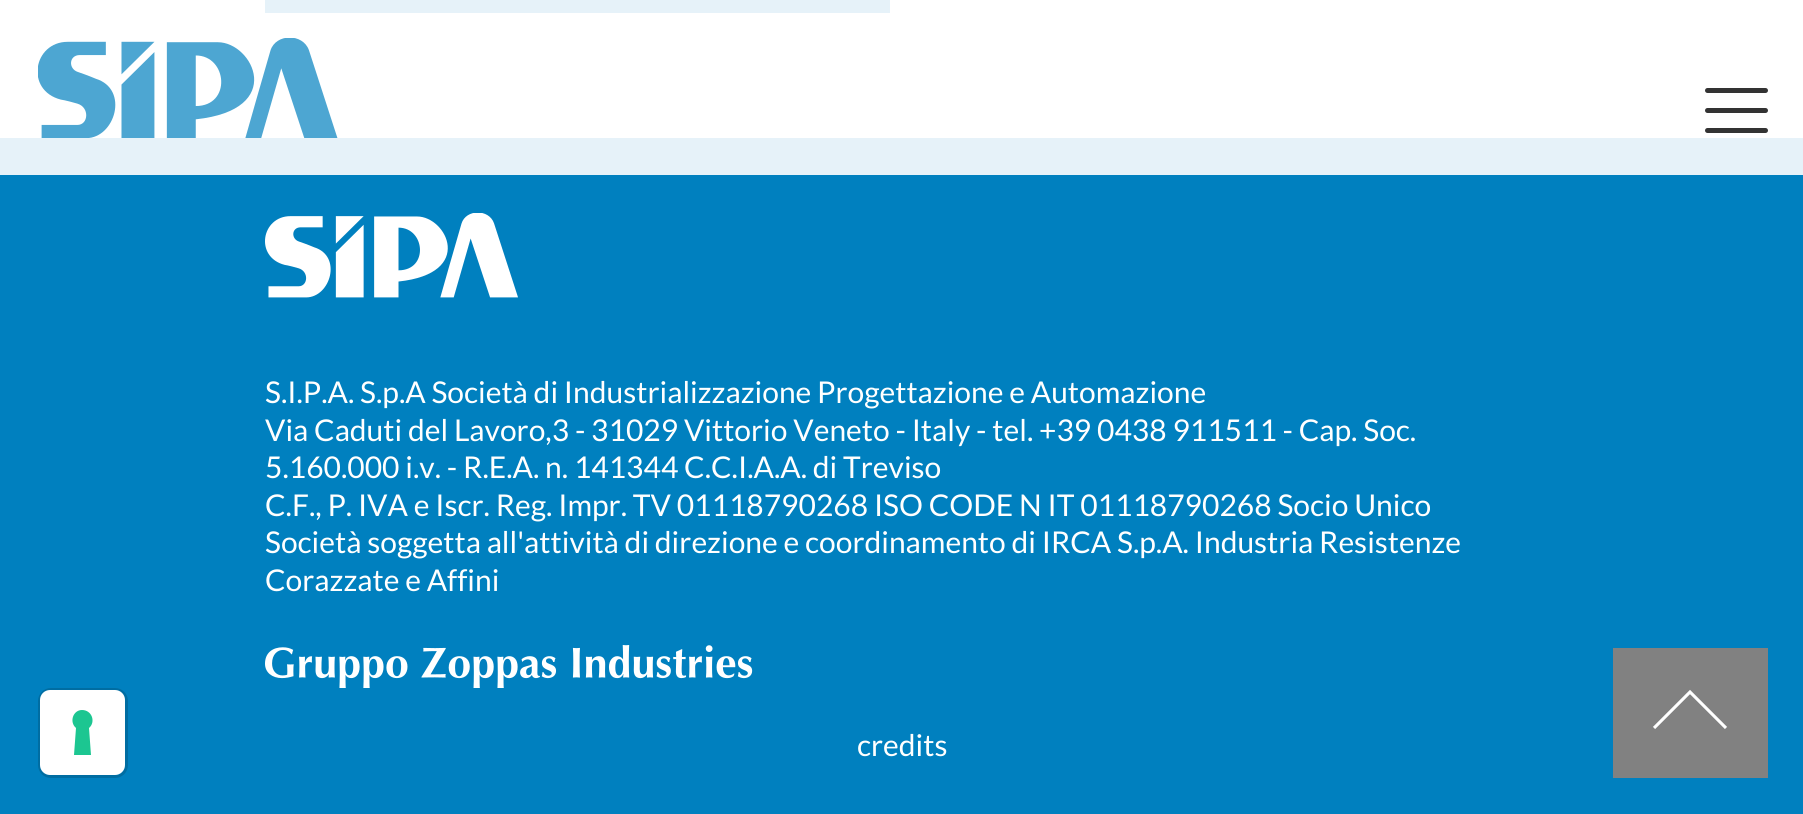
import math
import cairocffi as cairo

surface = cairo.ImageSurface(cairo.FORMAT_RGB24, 1803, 814)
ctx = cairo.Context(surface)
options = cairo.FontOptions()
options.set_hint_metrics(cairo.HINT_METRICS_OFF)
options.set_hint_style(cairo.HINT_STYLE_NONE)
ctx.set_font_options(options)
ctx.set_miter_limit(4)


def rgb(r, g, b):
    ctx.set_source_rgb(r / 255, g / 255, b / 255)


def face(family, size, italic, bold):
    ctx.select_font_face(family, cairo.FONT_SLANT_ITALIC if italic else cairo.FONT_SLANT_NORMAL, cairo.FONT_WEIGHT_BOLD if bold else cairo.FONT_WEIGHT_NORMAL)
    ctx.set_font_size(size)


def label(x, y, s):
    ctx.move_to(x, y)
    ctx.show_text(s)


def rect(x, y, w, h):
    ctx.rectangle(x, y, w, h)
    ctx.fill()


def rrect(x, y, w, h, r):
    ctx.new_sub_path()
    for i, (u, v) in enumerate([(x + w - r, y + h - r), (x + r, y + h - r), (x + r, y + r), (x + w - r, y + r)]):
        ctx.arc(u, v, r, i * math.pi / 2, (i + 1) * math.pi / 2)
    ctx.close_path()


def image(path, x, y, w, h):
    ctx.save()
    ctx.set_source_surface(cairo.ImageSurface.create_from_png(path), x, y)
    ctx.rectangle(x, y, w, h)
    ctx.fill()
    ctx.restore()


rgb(255, 255, 255)
ctx.paint()
rgb(230, 242, 249)
rect(265, 0, 625, 13)
image('image0.png', 38, 38, 300, 100)
rgb(51, 51, 51)
rrect(1705, 88, 63, 5, 2.5)
ctx.fill()
rrect(1705, 108, 63, 5, 2.5)
ctx.fill()
rrect(1705, 128, 63, 5, 2.5)
ctx.fill()
rgb(0, 128, 191)
rect(0, 175, 1803, 639)
rrect(39.5, 689.5, 87, 87, 11.5)
rgb(0, 109, 162)
ctx.set_line_width(3)
ctx.stroke()
rgb(255, 255, 255)
rrect(40, 690, 85, 85, 10)
ctx.fill()
rgb(28, 198, 145)
ctx.set_fill_rule(cairo.FILL_RULE_EVEN_ODD)
ctx.new_path()
ctx.move_to(82, 710)
ctx.curve_to(92, 710, 96, 722, 89, 728)
ctx.line_to(91, 755)
ctx.line_to(74, 755)
ctx.line_to(76, 728)
ctx.curve_to(69, 722, 73, 710, 82, 710)
ctx.close_path()
ctx.fill()
rgb(230, 242, 249)
rect(0, 138, 1803, 37)
image('image1.png', 265, 213, 253, 85)
face('Lato', 30, 0, 0)
rgb(255, 255, 255)
label(265, 403, 'S.I.P.A. S.p.A Società di Industrializzazione Progettazione e Automazione')
label(265, 441, 'Via Caduti del Lavoro,3 - 31029 Vittorio Veneto - Italy - tel. +39 0438 911511 - Cap. Soc.')
label(265, 478, '5.160.000 i.v. - R.E.A. n. 141344 C.C.I.A.A. di Treviso')
label(265, 516, 'C.F., P. IVA e Iscr. Reg. Impr. TV 01118790268 ISO CODE N IT 01118790268 Socio Unico')
label(265, 553, 'Società soggetta all\'attività di direzione e coordinamento di IRCA S.p.A. Industria Resistenze')
label(265, 591, 'Corazzate e Affini')
image('image2.png', 265, 645, 488, 43)
label(857, 756, 'credits')
rgb(129, 129, 129)
rect(1613, 648, 155, 130)
ctx.new_path()
ctx.move_to(1654, 728)
ctx.line_to(1690, 692)
ctx.line_to(1726, 728)
rgb(255, 255, 255)
ctx.set_line_width(3.1)
ctx.stroke()
surface.write_to_png('render.png')
